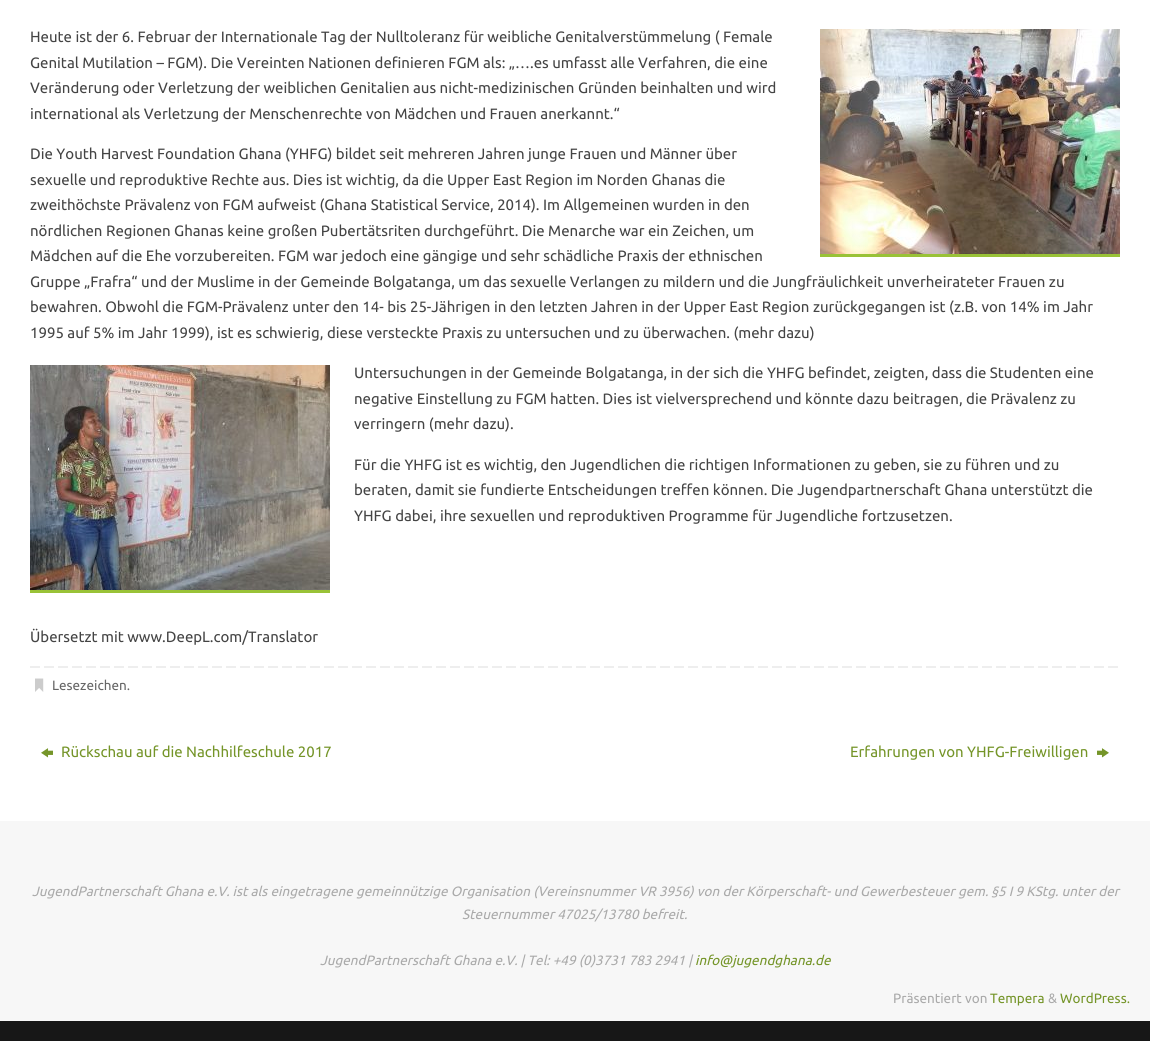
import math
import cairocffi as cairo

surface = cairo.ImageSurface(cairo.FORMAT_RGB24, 1150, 1041)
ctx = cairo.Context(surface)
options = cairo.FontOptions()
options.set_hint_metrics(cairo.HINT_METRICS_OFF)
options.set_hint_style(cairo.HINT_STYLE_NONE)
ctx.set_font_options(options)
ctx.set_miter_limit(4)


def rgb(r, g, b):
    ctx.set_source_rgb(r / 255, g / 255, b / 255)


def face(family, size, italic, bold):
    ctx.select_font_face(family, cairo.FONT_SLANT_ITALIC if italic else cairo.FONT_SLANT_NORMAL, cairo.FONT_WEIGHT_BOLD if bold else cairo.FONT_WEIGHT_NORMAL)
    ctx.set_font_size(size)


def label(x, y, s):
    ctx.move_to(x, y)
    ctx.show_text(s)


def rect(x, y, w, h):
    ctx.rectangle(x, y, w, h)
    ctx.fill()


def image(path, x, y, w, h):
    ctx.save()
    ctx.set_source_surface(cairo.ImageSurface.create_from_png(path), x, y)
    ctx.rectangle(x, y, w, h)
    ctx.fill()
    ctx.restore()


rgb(23, 23, 23)
ctx.paint()
rgb(255, 255, 255)
rect(0, 0, 1150, 821)
face('Ubuntu', 15, 0, 0)
rgb(68, 68, 68)
label(30, 42, 'Heute ist der 6. Februar der Internationale Tag der Nulltoleranz für weibliche Genitalverstümmelung ( Female')
rgb(153, 194, 55)
rect(820, 254, 300, 3)
image('image0.png', 820, 29, 300, 225)
rgb(68, 68, 68)
label(30, 68, 'Genital Mutilation – FGM). Die Vereinten Nationen definieren FGM als: „….es umfasst alle Verfahren, die eine')
label(30, 93, 'Veränderung oder Verletzung der weiblichen Genitalien aus nicht-medizinischen Gründen beinhalten und wird')
label(30, 119, 'international als Verletzung der Menschenrechte von Mädchen und Frauen anerkannt.“')
label(30, 159, 'Die Youth Harvest Foundation Ghana (YHFG) bildet seit mehreren Jahren junge Frauen und Männer über')
label(30, 185, 'sexuelle und reproduktive Rechte aus. Dies ist wichtig, da die Upper East Region im Norden Ghanas die')
label(30, 210, 'zweithöchste Prävalenz von FGM aufweist (Ghana Statistical Service, 2014). Im Allgemeinen wurden in den')
label(30, 236, 'nördlichen Regionen Ghanas keine großen Pubertätsriten durchgeführt. Die Menarche war ein Zeichen, um')
label(30, 261, 'Mädchen auf die Ehe vorzubereiten. FGM war jedoch eine gängige und sehr schädliche Praxis der ethnischen')
label(30, 287, 'Gruppe „Frafra“ und der Muslime in der Gemeinde Bolgatanga, um das sexuelle Verlangen zu mildern und die Jungfräulichkeit unverheirateter Frauen zu')
label(30, 312, 'bewahren. Obwohl die FGM-Prävalenz unter den 14- bis 25-Jährigen in den letzten Jahren in der Upper East Region zurückgegangen ist (z.B. von 14% im Jahr')
label(30, 338, '1995 auf 5% im Jahr 1999), ist es schwierig, diese versteckte Praxis zu untersuchen und zu überwachen. (mehr dazu)')
rgb(153, 194, 55)
rect(30, 590, 300, 3)
image('image1.png', 30, 365, 300, 225)
rgb(68, 68, 68)
label(354, 378, 'Untersuchungen in der Gemeinde Bolgatanga, in der sich die YHFG befindet, zeigten, dass die Studenten eine')
label(354, 404, 'negative Einstellung zu FGM hatten. Dies ist vielversprechend und könnte dazu beitragen, die Prävalenz zu')
label(354, 429, 'verringern (mehr dazu).')
label(354, 470, 'Für die YHFG ist es wichtig, den Jugendlichen die richtigen Informationen zu geben, sie zu führen und zu')
label(354, 495, 'beraten, damit sie fundierte Entscheidungen treffen können. Die Jugendpartnerschaft Ghana unterstützt die')
label(354, 521, 'YHFG dabei, ihre sexuellen und reproduktiven Programme für Jugendliche fortzusetzen.')
label(30, 642, 'Übersetzt mit www.DeepL.com/Translator')
image('image2.png', 30, 666, 1088, 2)
image('image3.png', 35, 678, 9, 14)
face('Ubuntu', 13.5, 0, 0)
rgb(102, 102, 102)
label(52, 690, 'Lesezeichen.')
image('image4.png', 41, 748, 12, 10)
face('Ubuntu', 15, 0, 0)
rgb(117, 149, 41)
label(61, 757, 'Rückschau auf die Nachhilfeschule 2017')
label(850, 757, 'Erfahrungen von YHFG-Freiwilligen')
image('image5.png', 1097, 748, 12, 10)
rgb(247, 247, 247)
rect(0, 821, 1150, 200)
face('Ubuntu', 13.5, 1, 0)
rgb(170, 170, 170)
label(32, 896, 'JugendPartnerschaft Ghana e.V. ist als eingetragene gemeinnützige Organisation (Vereinsnummer VR 3956) von der Körperschaft- und Gewerbesteuer gem. §5 I 9 KStg. unter der')
label(462, 919, 'Steuernummer 47025/13780 befreit.')
label(320, 965, 'JugendPartnerschaft Ghana e.V. | Tel: +49 (0)3731 783 2941 |')
rgb(117, 149, 41)
label(695, 965, 'info@jugendghana.de')
face('Ubuntu', 13.5, 0, 0)
rgb(170, 170, 170)
label(893, 1003, 'Präsentiert von')
rgb(117, 149, 41)
label(990, 1003, 'Tempera')
rgb(170, 170, 170)
label(1048, 1003, '&')
rgb(117, 149, 41)
label(1060, 1003, 'WordPress.')
surface.write_to_png('render.png')
